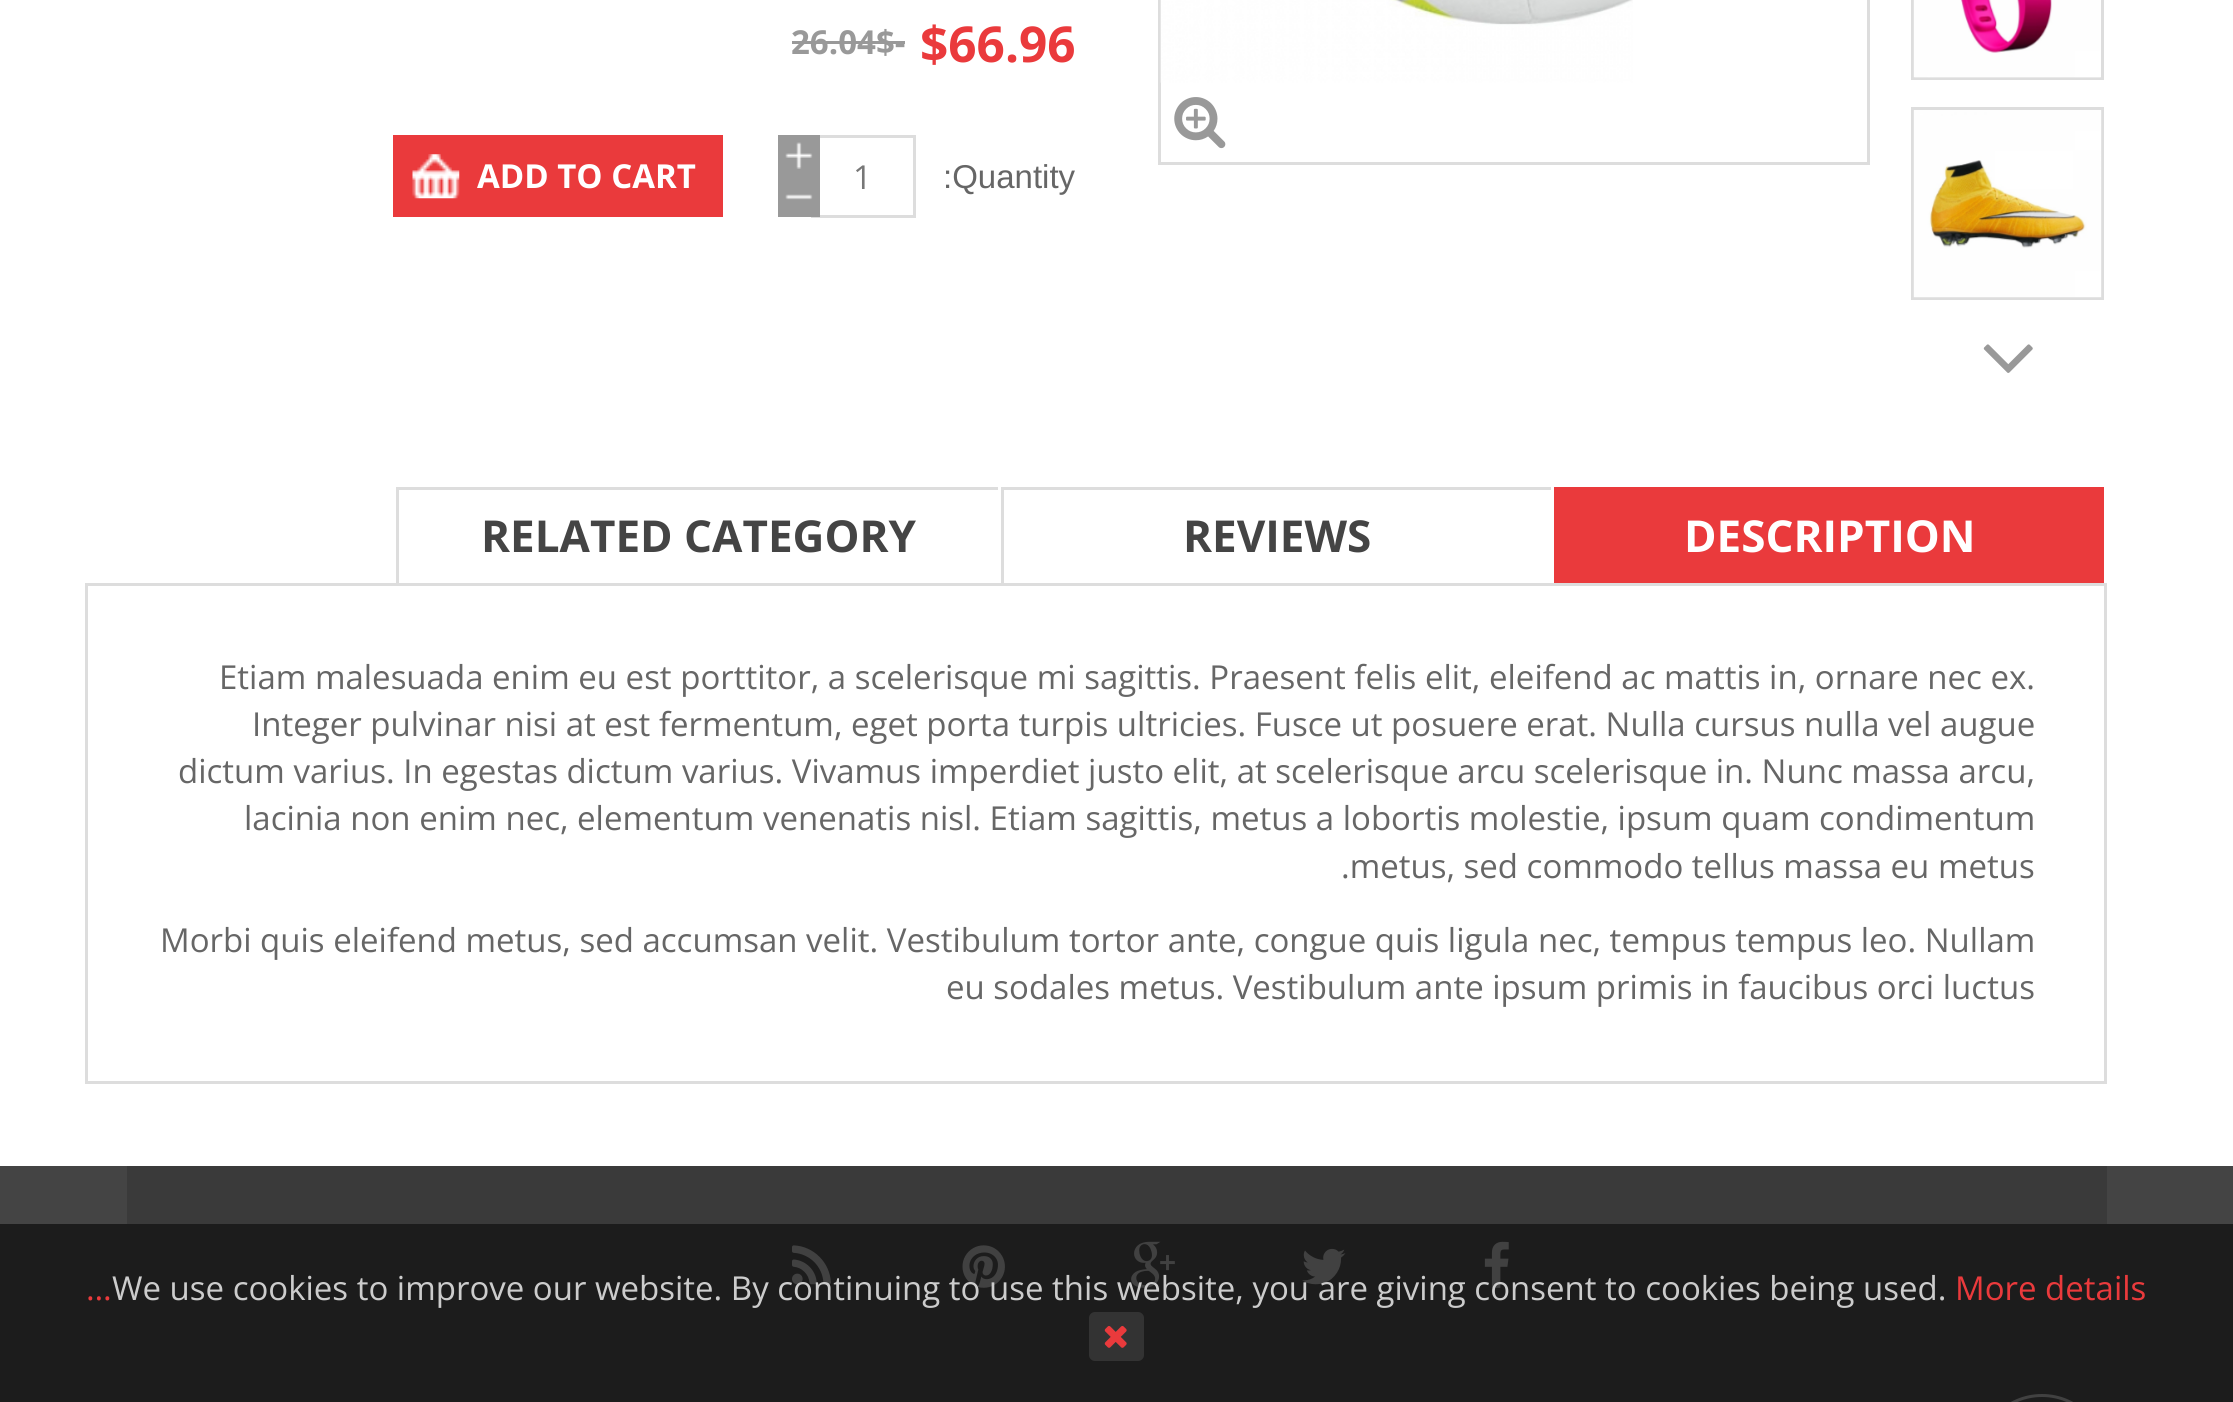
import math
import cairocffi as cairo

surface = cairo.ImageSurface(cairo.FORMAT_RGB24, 2233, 1402)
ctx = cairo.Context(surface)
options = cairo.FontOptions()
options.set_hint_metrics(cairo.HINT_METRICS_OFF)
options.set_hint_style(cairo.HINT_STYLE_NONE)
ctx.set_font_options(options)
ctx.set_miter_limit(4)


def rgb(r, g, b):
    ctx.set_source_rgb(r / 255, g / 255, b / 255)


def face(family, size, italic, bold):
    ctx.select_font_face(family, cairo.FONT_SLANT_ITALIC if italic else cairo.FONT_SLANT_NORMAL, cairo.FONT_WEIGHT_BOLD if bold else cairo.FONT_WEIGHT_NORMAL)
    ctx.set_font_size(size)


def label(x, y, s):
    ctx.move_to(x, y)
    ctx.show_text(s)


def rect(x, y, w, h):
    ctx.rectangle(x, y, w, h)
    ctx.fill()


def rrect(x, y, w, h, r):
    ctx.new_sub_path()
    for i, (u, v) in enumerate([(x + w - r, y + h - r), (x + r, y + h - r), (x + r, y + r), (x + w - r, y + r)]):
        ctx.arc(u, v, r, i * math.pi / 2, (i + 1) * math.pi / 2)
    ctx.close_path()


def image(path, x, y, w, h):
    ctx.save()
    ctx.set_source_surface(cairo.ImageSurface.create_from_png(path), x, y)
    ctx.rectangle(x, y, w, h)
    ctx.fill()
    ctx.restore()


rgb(255, 255, 255)
ctx.paint()
face('Open Sans', 33, 0, 1)
rgb(153, 153, 153)
label(791, 54, '26.04$-')
rect(792, 41, 113, 3)
face('Open Sans', 49.5, 0, 1)
rgb(234, 58, 60)
label(920, 62, '$66.96')
rect(393, 135, 330, 82)
image('image0.png', 412, 154, 48, 45)
face('Open Sans', 33, 0, 1)
rgb(255, 255, 255)
label(477, 188, 'ADD TO CART')
rgb(221, 221, 221)
rect(820, 135, 96, 3)
rect(913, 135, 3, 82)
rect(811, 215, 105, 3)
rgb(153, 153, 153)
rect(778, 135, 42, 82)
image('image1.png', 785, 142, 28, 27)
face('Open Sans', 33, 0, 0)
rgb(119, 119, 119)
label(853, 189, '1')
image('image2.png', 785, 194, 28, 6)
face('Liberation Sans', 33, 0, 0)
rgb(102, 102, 102)
label(943, 188, ':Quantity')
ctx.rectangle(1159.5, -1.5, 709, 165)
rgb(221, 221, 221)
ctx.set_line_width(3)
ctx.stroke()
image('image3.png', 1160, 0, 473, 83)
image('image4.png', 1174, 97, 52, 52)
ctx.rectangle(1912.5, -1.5, 190, 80)
ctx.stroke()
image('image5.png', 1913, 0, 188, 78)
ctx.rectangle(1912.5, 108.5, 190, 190)
ctx.stroke()
image('image6.png', 1913, 110, 189, 188)
image('image7.png', 1983, 344, 50, 29)
rect(396, 487, 602, 3)
rect(396, 487, 3, 96)
face('Open Sans', 44, 0, 1)
rgb(68, 68, 68)
label(481, 552, 'RELATED CATEGORY')
rgb(221, 221, 221)
rect(1001, 487, 550, 3)
rect(1001, 487, 3, 96)
rgb(68, 68, 68)
label(1183, 552, 'REVIEWS')
rgb(234, 58, 60)
rect(1557, 490, 547, 93)
rect(1554, 487, 550, 3)
rect(1554, 487, 3, 96)
rgb(255, 255, 255)
label(1684, 552, 'DESCRIPTION')
ctx.rectangle(86.5, 584.5, 2019, 498)
rgb(221, 221, 221)
ctx.stroke()
face('Open Sans', 33, 0, 0)
rgb(102, 102, 102)
label(219, 689, 'Etiam malesuada enim eu est porttitor, a scelerisque mi sagittis. Praesent felis elit, eleifend ac mattis in, ornare nec ex.')
label(252, 736, 'Integer pulvinar nisi at est fermentum, eget porta turpis ultricies. Fusce ut posuere erat. Nulla cursus nulla vel augue')
label(178, 783, 'dictum varius. In egestas dictum varius. Vivamus imperdiet justo elit, at scelerisque arcu scelerisque in. Nunc massa arcu,')
label(244, 830, 'lacinia non enim nec, elementum venenatis nisl. Etiam sagittis, metus a lobortis molestie, ipsum quam condimentum')
label(1341, 878, '.metus, sed commodo tellus massa eu metus')
label(160, 952, 'Morbi quis eleifend metus, sed accumsan velit. Vestibulum tortor ante, congue quis ligula nec, tempus tempus leo. Nullam')
label(946, 999, 'eu sodales metus. Vestibulum ante ipsum primis in faucibus orci luctus')
rgb(68, 68, 68)
rect(0, 1166, 2233, 58)
rgb(28, 28, 28)
rect(0, 1224, 2233, 178)
rgb(58, 58, 58)
rect(127, 1166, 1980, 58)
image('image8.png', 792, 1245, 39, 40)
image('image9.png', 962, 1245, 43, 43)
image('image10.png', 1131, 1241, 44, 47)
image('image11.png', 1302, 1248, 44, 37)
image('image12.png', 1484, 1241, 25, 47)
rrect(1978.5, 1395.5, 127, 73, 63.5)
rgb(65, 65, 65)
ctx.stroke()
rgb(234, 58, 60)
label(86, 1300, '…')
rgb(204, 204, 204)
label(112, 1300, 'We use cookies to improve our website. By continuing to use this website, you are giving consent to cookies being used.')
rgb(234, 58, 60)
label(1955, 1300, 'More details')
rgb(51, 51, 51)
rrect(1089, 1312, 55, 49, 6)
ctx.fill()
image('image13.png', 1104, 1326, 23, 22)
surface.write_to_png('render.png')
